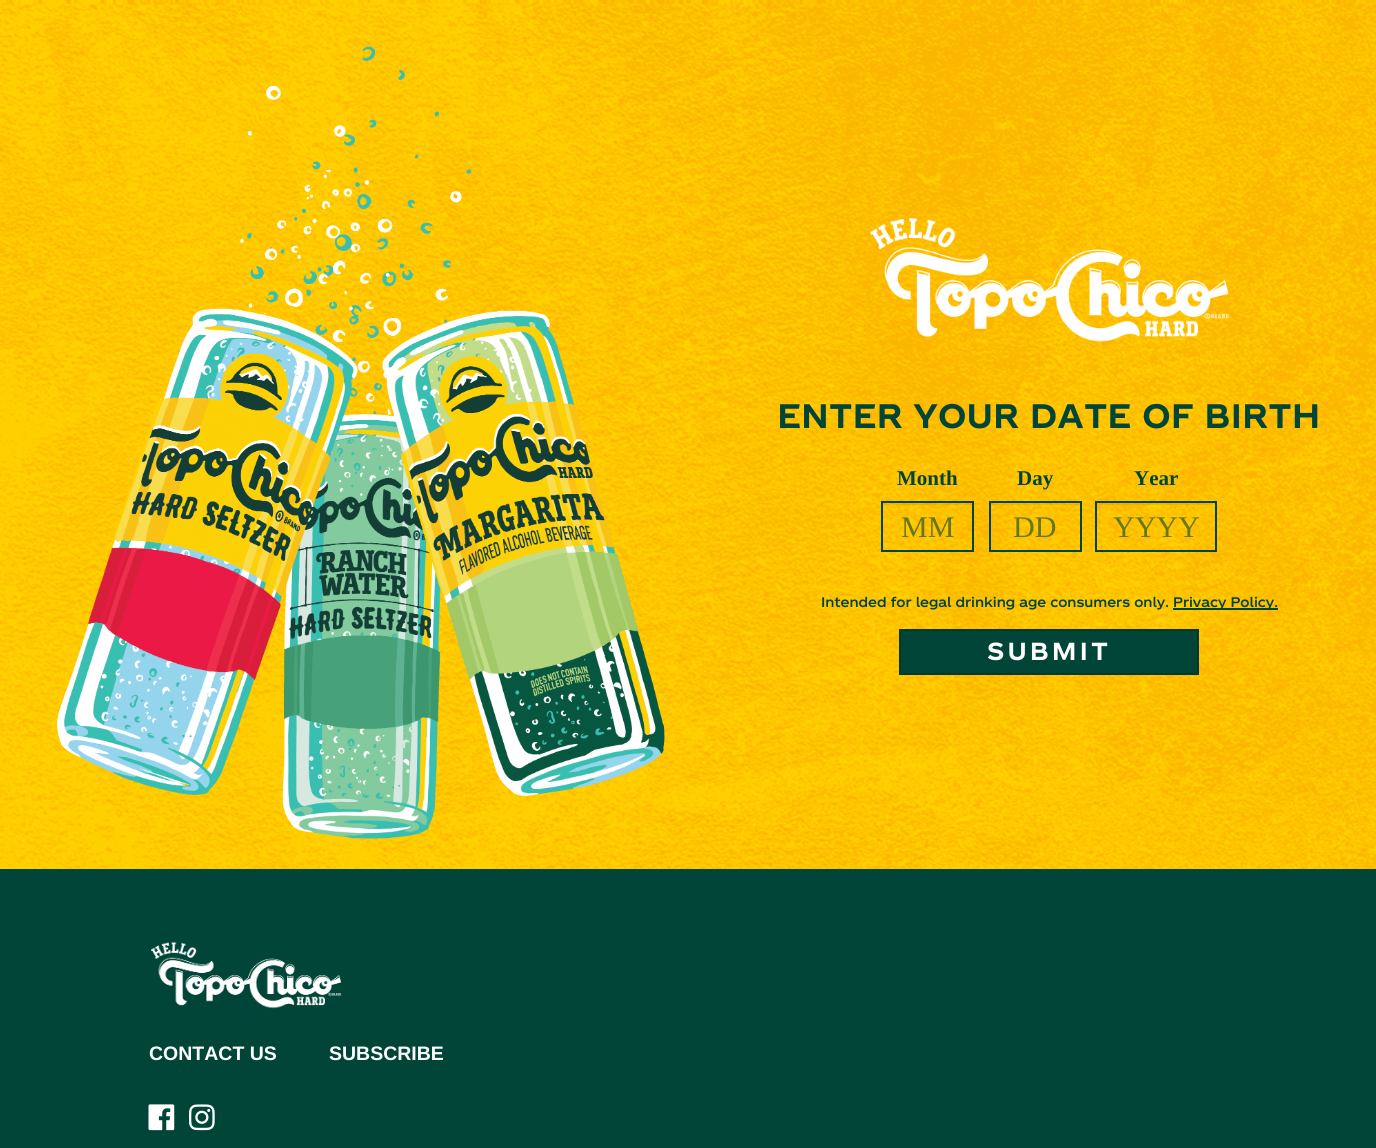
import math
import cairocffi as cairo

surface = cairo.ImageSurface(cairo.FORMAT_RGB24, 1376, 1148)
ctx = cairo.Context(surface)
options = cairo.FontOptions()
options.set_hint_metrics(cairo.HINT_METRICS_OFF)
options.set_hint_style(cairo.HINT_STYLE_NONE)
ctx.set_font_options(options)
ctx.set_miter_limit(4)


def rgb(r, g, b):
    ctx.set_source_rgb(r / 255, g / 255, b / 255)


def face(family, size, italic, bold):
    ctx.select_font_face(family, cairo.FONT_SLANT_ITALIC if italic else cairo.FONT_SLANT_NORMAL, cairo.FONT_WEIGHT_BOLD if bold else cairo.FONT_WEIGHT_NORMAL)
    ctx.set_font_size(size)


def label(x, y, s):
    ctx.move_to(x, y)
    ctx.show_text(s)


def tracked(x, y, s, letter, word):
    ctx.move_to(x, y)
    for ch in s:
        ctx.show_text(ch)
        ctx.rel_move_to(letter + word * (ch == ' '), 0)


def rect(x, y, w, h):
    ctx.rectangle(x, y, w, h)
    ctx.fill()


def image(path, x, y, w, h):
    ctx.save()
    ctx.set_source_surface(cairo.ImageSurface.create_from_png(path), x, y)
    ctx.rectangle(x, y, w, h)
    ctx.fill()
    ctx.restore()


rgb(255, 255, 255)
ctx.paint()
image('image0.png', 0, 0, 1376, 869)
image('image1.png', 0, 1, 1376, 868)
image('image2.png', 57, 46, 608, 793)
image('image3.png', 869, 218, 360, 124)
face('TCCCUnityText', 33, 0, 1)
rgb(0, 69, 56)
label(777, 428, 'ENTER YOUR DATE OF BIRTH')
face('Liberation Serif', 21, 0, 1)
label(897, 485, 'Month')
ctx.set_source_rgba(0, 0, 0, 0.07)
rect(882, 503, 90, 2)
ctx.rectangle(882, 502, 91, 49)
rgb(0, 69, 56)
ctx.stroke()
face('Liberation Serif', 30, 0, 0)
rgb(101, 119, 34)
label(901, 537, 'MM')
face('Liberation Serif', 21, 0, 1)
rgb(0, 69, 56)
label(1017, 485, 'Day')
ctx.set_source_rgba(0, 0, 0, 0.07)
rect(990, 503, 90, 2)
ctx.rectangle(990, 502, 91, 49)
rgb(0, 69, 56)
ctx.stroke()
face('Liberation Serif', 30, 0, 0)
rgb(101, 119, 34)
label(1013, 537, 'DD')
face('Liberation Serif', 21, 0, 1)
rgb(0, 69, 56)
label(1134, 485, 'Year')
ctx.set_source_rgba(0, 0, 0, 0.07)
rect(1097, 503, 118, 2)
ctx.rectangle(1096, 502, 120, 49)
rgb(0, 69, 56)
ctx.stroke()
face('Liberation Serif', 30, 0, 0)
rgb(101, 119, 34)
label(1113, 537, 'YYYY')
face('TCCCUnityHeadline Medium', 13.5, 0, 0)
rgb(0, 69, 56)
label(821, 607, 'Intended for legal drinking age consumers only.')
rect(1173, 608, 105, 2)
label(1173, 607, 'Privacy Policy.')
ctx.rectangle(900, 630, 298, 44)
ctx.fill_preserve()
rgb(4, 56, 38)
ctx.stroke()
face('TCCCUnityText', 24, 0, 1)
rgb(255, 255, 255)
tracked(987, 660, 'SUBMIT', 3, 0)
rgb(0, 69, 56)
rect(0, 869, 1376, 279)
image('image4.png', 151, 941, 191, 68)
face('Liberation Sans', 19.5, 0, 1)
rgb(255, 255, 255)
label(149, 1060, 'CONTACT US')
label(329, 1060, 'SUBSCRIBE')
image('image5.png', 148, 1104, 27, 27)
image('image6.png', 189, 1104, 26, 27)
surface.write_to_png('render.png')
